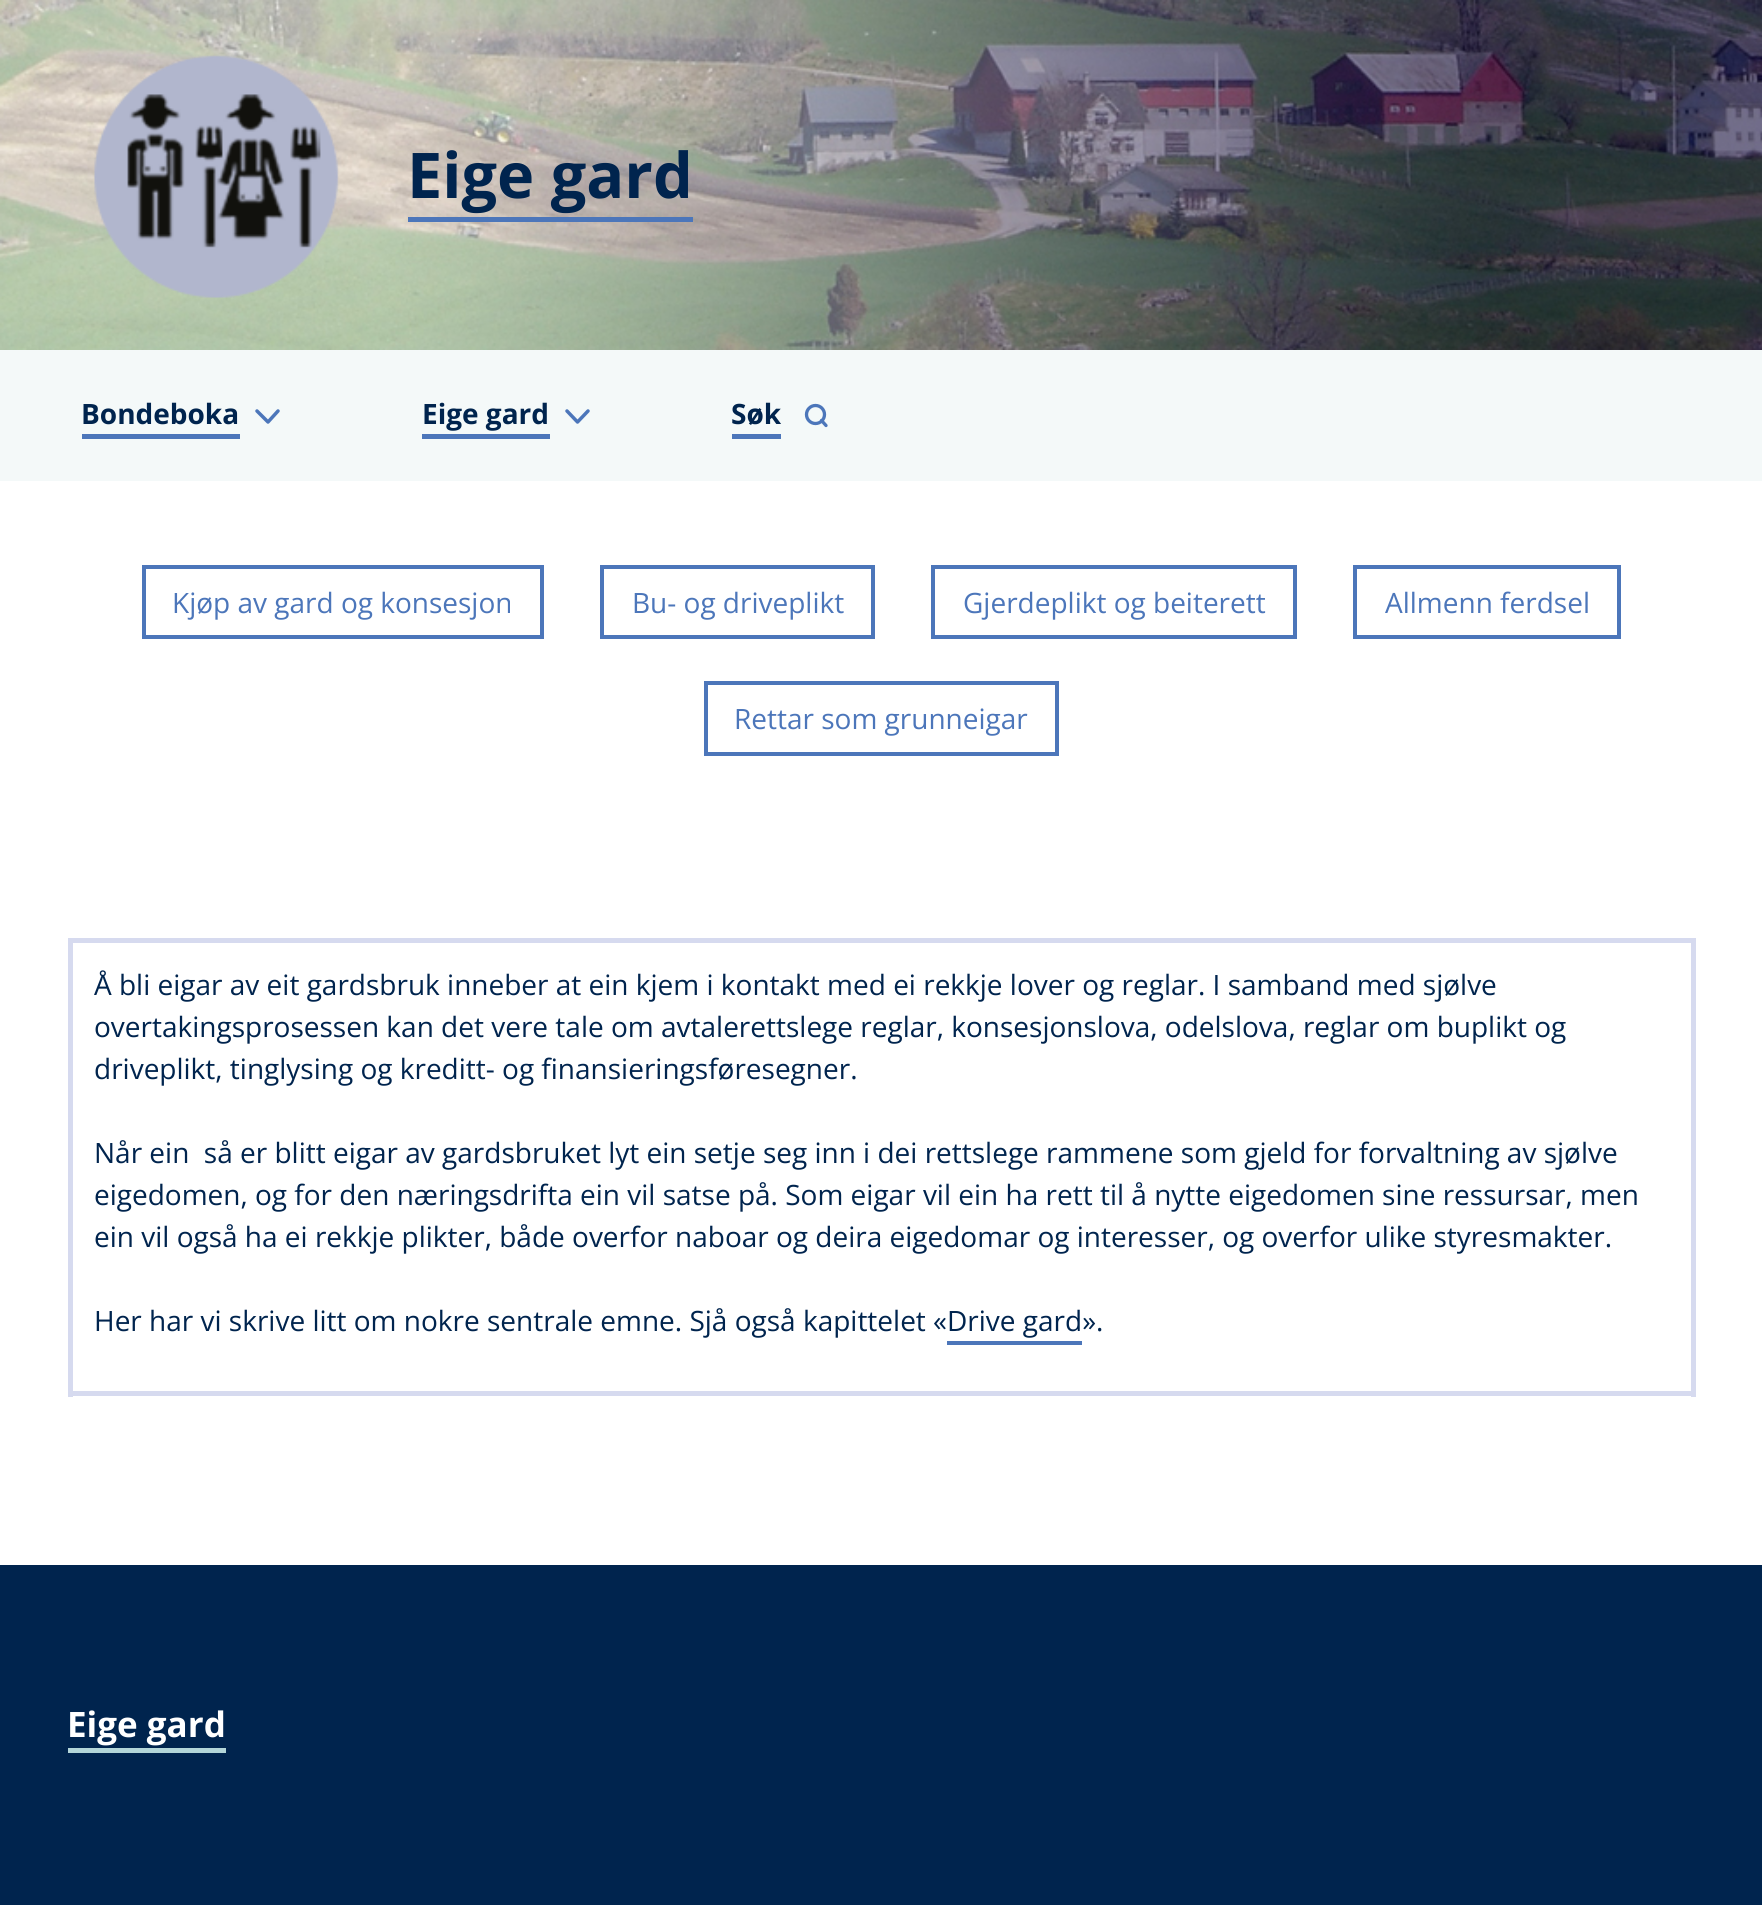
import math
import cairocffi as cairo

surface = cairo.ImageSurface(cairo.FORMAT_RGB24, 1762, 1905)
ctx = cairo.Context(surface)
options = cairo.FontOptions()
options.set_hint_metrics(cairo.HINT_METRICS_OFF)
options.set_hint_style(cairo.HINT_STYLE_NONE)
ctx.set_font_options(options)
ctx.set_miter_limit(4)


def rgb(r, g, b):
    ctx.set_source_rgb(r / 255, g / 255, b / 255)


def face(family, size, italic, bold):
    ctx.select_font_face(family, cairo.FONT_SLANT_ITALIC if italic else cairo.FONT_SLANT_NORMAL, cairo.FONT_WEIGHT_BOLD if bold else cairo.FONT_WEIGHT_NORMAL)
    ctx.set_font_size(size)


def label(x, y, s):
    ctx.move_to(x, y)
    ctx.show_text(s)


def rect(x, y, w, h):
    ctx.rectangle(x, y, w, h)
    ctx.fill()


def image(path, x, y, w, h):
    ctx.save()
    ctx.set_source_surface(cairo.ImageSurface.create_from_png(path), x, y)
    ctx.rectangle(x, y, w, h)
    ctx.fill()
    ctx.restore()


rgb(255, 255, 255)
ctx.paint()
image('image0.png', 0, 0, 1762, 350)
image('image1.png', 94, 55, 245, 243)
face('Open Sans', 63, 0, 1)
rgb(0, 36, 78)
label(407, 198, 'Eige gard')
rgb(76, 118, 186)
rect(408, 217, 285, 5)
rgb(244, 249, 249)
rect(0, 350, 1762, 131)
rgb(76, 118, 186)
rect(82, 434, 158, 5)
face('Open Sans', 28, 0, 1)
rgb(0, 36, 78)
label(81, 424, 'Bondeboka')
ctx.new_path()
ctx.move_to(257, 411)
ctx.line_to(268, 422)
ctx.line_to(278, 411)
rgb(76, 118, 186)
ctx.set_line_width(3.5)
ctx.set_line_cap(cairo.LINE_CAP_ROUND)
ctx.set_line_join(cairo.LINE_JOIN_ROUND)
ctx.stroke()
rect(422, 434, 128, 5)
rgb(0, 36, 78)
label(422, 424, 'Eige gard')
ctx.new_path()
ctx.move_to(567, 411)
ctx.line_to(577.5, 422)
ctx.line_to(588, 411)
rgb(76, 118, 186)
ctx.stroke()
rect(732, 434, 49, 5)
rgb(0, 36, 78)
label(731, 424, 'Søk')
ctx.new_path()
ctx.arc(815.5, 414.5, 9, 0, 2 * math.pi)
rgb(76, 118, 186)
ctx.set_line_width(3.3)
ctx.set_line_cap(cairo.LINE_CAP_BUTT)
ctx.set_line_join(cairo.LINE_JOIN_MITER)
ctx.stroke()
ctx.new_path()
ctx.move_to(826, 425.5)
ctx.line_to(821.5, 420.5)
ctx.set_line_cap(cairo.LINE_CAP_ROUND)
ctx.set_line_join(cairo.LINE_JOIN_ROUND)
ctx.stroke()
ctx.rectangle(144, 567, 398, 70)
ctx.set_line_width(4)
ctx.set_line_cap(cairo.LINE_CAP_BUTT)
ctx.set_line_join(cairo.LINE_JOIN_MITER)
ctx.stroke()
face('Open Sans', 28, 0, 0)
label(172, 613, 'Kjøp av gard og konsesjon')
ctx.rectangle(602, 567, 271, 70)
ctx.stroke()
label(632, 613, 'Bu- og driveplikt')
ctx.rectangle(933, 567, 362, 70)
ctx.stroke()
label(963, 613, 'Gjerdeplikt og beiterett')
ctx.rectangle(1355, 567, 264, 70)
ctx.stroke()
label(1385, 613, 'Allmenn ferdsel')
ctx.rectangle(706, 683, 351, 71)
ctx.stroke()
label(734, 729, 'Rettar som grunneigar')
rgb(214, 218, 239)
rect(68, 938, 1628, 5)
rect(1691, 938, 5, 459)
rect(68, 1391, 1628, 5)
rect(68, 938, 5, 459)
rgb(0, 36, 78)
label(94, 995, 'Å bli eigar av eit gardsbruk inneber at ein kjem i kontakt med ei rekkje lover og reglar. I samband med sjølve')
label(94, 1037, 'overtakingsprosessen kan det vere tale om avtalerettslege reglar, konsesjonslova, odelslova, reglar om buplikt og')
label(94, 1079, 'driveplikt, tinglysing og kreditt- og finansieringsføresegner.')
label(94, 1163, 'Når ein  så er blitt eigar av gardsbruket lyt ein setje seg inn i dei rettslege rammene som gjeld for forvaltning av sjølve')
label(94, 1205, 'eigedomen, og for den næringsdrifta ein vil satse på. Som eigar vil ein ha rett til å nytte eigedomen sine ressursar, men')
label(94, 1247, 'ein vil også ha ei rekkje plikter, både overfor naboar og deira eigedomar og interesser, og overfor ulike styresmakter.')
label(94, 1331, 'Her har vi skrive litt om nokre sentrale emne. Sjå også kapittelet «Drive gard».')
rgb(76, 118, 186)
rect(947, 1341, 135, 4)
rgb(0, 36, 78)
rect(0, 1565, 1762, 340)
face('Open Sans', 35, 0, 1)
rgb(255, 255, 255)
label(67, 1737, 'Eige gard')
rgb(179, 214, 217)
rect(68, 1748, 158, 5)
surface.write_to_png('render.png')
